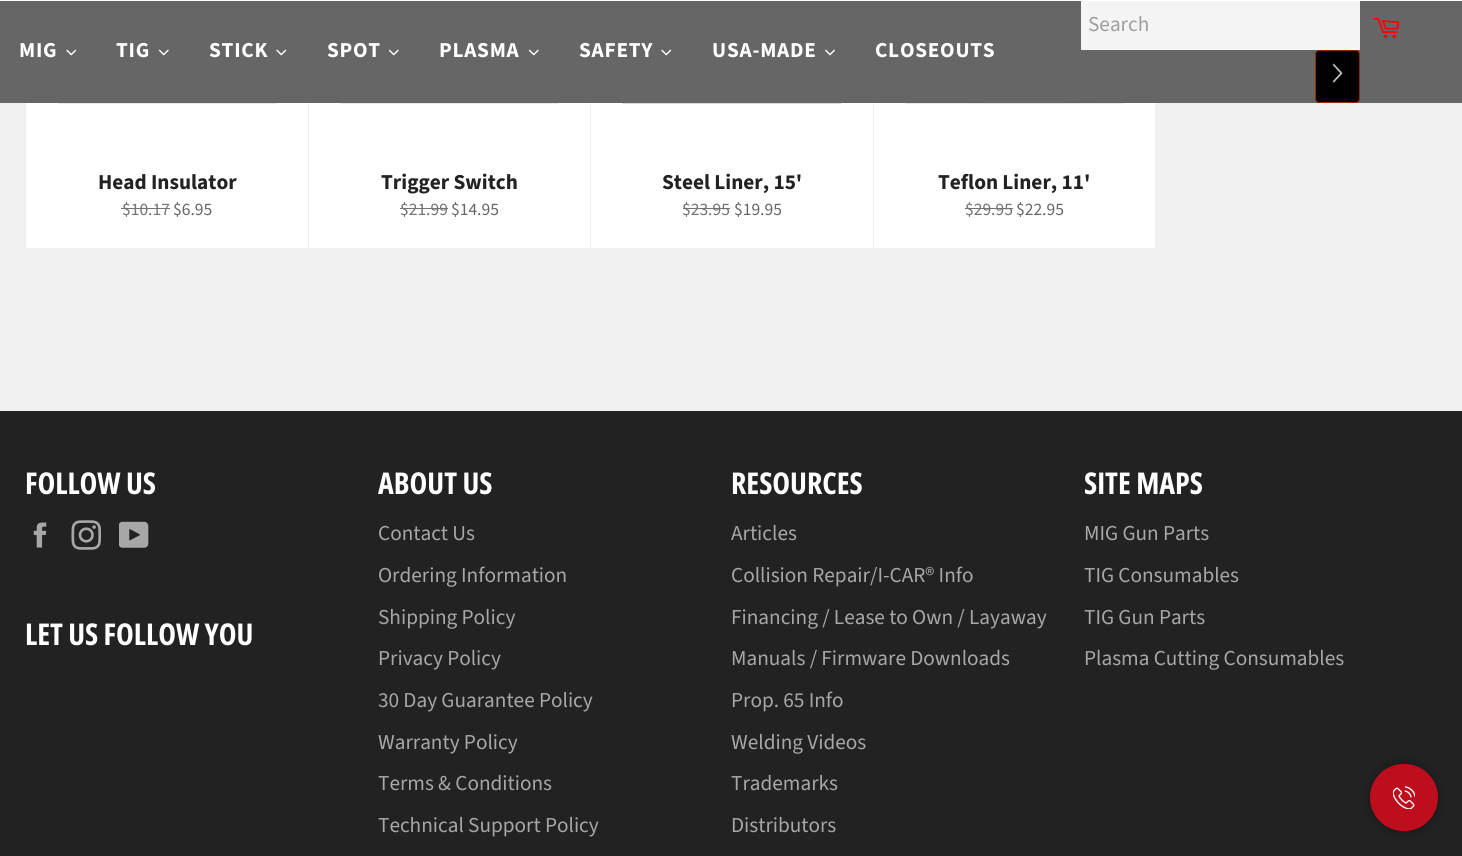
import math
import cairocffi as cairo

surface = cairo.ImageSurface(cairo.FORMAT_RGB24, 1462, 856)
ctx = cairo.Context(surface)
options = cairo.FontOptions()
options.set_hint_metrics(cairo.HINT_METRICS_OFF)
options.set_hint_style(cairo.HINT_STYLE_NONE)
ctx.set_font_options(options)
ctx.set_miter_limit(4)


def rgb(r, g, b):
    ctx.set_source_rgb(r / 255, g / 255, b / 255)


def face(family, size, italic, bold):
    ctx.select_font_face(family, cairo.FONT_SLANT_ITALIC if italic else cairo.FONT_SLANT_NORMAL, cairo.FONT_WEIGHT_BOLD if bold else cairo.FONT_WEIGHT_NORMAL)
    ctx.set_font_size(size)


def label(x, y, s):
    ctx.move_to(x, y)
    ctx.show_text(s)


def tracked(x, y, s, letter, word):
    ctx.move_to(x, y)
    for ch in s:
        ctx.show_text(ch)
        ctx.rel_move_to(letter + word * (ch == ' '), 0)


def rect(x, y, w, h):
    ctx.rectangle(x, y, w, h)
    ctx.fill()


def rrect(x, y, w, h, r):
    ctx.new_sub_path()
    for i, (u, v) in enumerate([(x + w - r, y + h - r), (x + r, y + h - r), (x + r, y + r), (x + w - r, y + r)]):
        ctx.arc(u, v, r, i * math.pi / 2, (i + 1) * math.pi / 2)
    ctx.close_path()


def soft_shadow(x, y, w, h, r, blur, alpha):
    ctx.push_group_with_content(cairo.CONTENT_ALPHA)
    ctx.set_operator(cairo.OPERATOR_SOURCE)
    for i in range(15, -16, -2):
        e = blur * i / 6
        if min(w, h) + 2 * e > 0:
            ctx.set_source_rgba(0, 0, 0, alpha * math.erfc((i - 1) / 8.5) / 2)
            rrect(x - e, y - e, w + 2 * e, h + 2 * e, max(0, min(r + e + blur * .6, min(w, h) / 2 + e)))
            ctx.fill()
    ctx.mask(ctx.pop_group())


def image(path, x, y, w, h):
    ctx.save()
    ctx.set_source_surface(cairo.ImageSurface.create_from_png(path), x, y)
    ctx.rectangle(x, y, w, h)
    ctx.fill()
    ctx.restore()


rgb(240, 240, 240)
ctx.paint()
rgb(255, 255, 255)
rect(0, 0, 1462, 1)
rgb(102, 102, 102)
rect(0, 1, 1462, 102)
rgb(244, 244, 244)
rect(1081, 1, 279, 49)
face('Source Sans Pro', 21.25, 0, 0)
rgb(159, 159, 159)
label(1088, 31, 'Search')
rgb(0, 0, 0)
rrect(1315.5, 50.5, 44, 52, 3.5)
ctx.fill_preserve()
rgb(148, 41, 17)
ctx.set_line_width(1)
ctx.stroke()
image('image0.png', 1332, 63, 11, 20)
image('image1.png', 1373, 18, 27, 21)
face('Source Sans Pro', 21.25, 0, 1)
rgb(255, 255, 255)
tracked(19, 57, 'MIG', 0.75, 0)
image('image2.png', 66, 49, 11, 7)
tracked(116, 57, 'TIG', 0.75, 0)
image('image3.png', 158, 49, 11, 7)
tracked(209, 57, 'STICK', 0.75, 0)
image('image2.png', 276, 49, 11, 7)
tracked(327, 57, 'SPOT', 0.75, 0)
image('image3.png', 388, 49, 11, 7)
tracked(439, 57, 'PLASMA', 0.75, 0)
image('image3.png', 528, 49, 11, 7)
tracked(579, 57, 'SAFETY', 0.75, 0)
image('image2.png', 661, 49, 11, 7)
tracked(712, 57, 'USA-MADE', 0.75, 0)
image('image4.png', 825, 49, 10, 7)
tracked(875, 57, 'CLOSEOUTS', 0.75, 0)
rect(26, 103, 282, 145)
image('image5.png', 57, 103, 220, 1)
rgb(34, 34, 34)
label(98, 189, 'Head Insulator')
face('Source Sans Pro', 17.5, 0, 0)
rgb(115, 115, 115)
label(122, 215, '$10.17')
rect(121, 208, 49, 1)
rgb(102, 102, 102)
label(173, 215, '$6.95')
rgb(255, 255, 255)
rect(309, 103, 281, 145)
image('image6.png', 340, 103, 219, 1)
face('Source Sans Pro', 21.25, 0, 1)
rgb(34, 34, 34)
label(381, 189, 'Trigger Switch')
face('Source Sans Pro', 17.5, 0, 0)
rgb(115, 115, 115)
label(400, 215, '$21.99')
rect(400, 208, 48, 1)
rgb(102, 102, 102)
label(451, 215, '$14.95')
rgb(255, 255, 255)
rect(591, 103, 282, 145)
image('image7.png', 622, 103, 220, 1)
face('Source Sans Pro', 21.25, 0, 1)
rgb(34, 34, 34)
label(662, 189, 'Steel Liner, 15\'')
face('Source Sans Pro', 17.5, 0, 0)
rgb(115, 115, 115)
label(682, 215, '$23.95')
rect(683, 208, 47, 1)
rgb(102, 102, 102)
label(734, 215, '$19.95')
rgb(255, 255, 255)
rect(874, 103, 281, 145)
image('image8.png', 905, 103, 219, 1)
face('Source Sans Pro', 21.25, 0, 1)
rgb(34, 34, 34)
label(938, 189, 'Teflon Liner, 11\'')
face('Source Sans Pro', 17.5, 0, 0)
rgb(115, 115, 115)
label(965, 215, '$29.95')
rect(965, 208, 48, 1)
rgb(102, 102, 102)
label(1016, 215, '$22.95')
rgb(34, 34, 34)
rect(0, 411, 1462, 445)
face('Open Sans Condensed', 30, 0, 1)
rgb(255, 255, 255)
label(25, 494, 'FOLLOW US')
image('image9.png', 33, 522, 14, 26)
image('image10.png', 71, 520, 30, 30)
image('image11.png', 119, 521, 30, 27)
label(25, 645, 'LET US FOLLOW YOU')
label(378, 494, 'ABOUT US')
face('Source Sans Pro', 21.25, 0, 0)
rgb(167, 167, 167)
label(378, 540, 'Contact Us')
label(378, 582, 'Ordering Information')
label(378, 624, 'Shipping Policy')
label(378, 665, 'Privacy Policy')
label(378, 707, '30 Day Guarantee Policy')
label(378, 749, 'Warranty Policy')
label(378, 790, 'Terms & Conditions')
label(378, 832, 'Technical Support Policy')
face('Open Sans Condensed', 30, 0, 1)
rgb(255, 255, 255)
label(731, 494, 'RESOURCES')
face('Source Sans Pro', 21.25, 0, 0)
rgb(167, 167, 167)
label(731, 540, 'Articles')
label(731, 582, 'Collision Repair/I-CAR® Info')
label(731, 624, 'Financing / Lease to Own / Layaway')
label(731, 665, 'Manuals / Firmware Downloads')
label(731, 707, 'Prop. 65 Info')
label(731, 749, 'Welding Videos')
label(731, 790, 'Trademarks')
label(731, 832, 'Distributors')
face('Open Sans Condensed', 30, 0, 1)
rgb(255, 255, 255)
label(1084, 494, 'SITE MAPS')
face('Source Sans Pro', 21.25, 0, 0)
rgb(167, 167, 167)
label(1084, 540, 'MIG Gun Parts')
label(1084, 582, 'TIG Consumables')
label(1084, 624, 'TIG Gun Parts')
label(1084, 665, 'Plasma Cutting Consumables')
rgb(0, 0, 0)
soft_shadow(1375, 769, 58, 57, 28.5, 6, 1)
rgb(190, 13, 28)
rrect(1370, 764, 68, 67, 33.5)
ctx.fill()
image('image12.png', 1393, 786, 22, 23)
surface.write_to_png('render.png')
